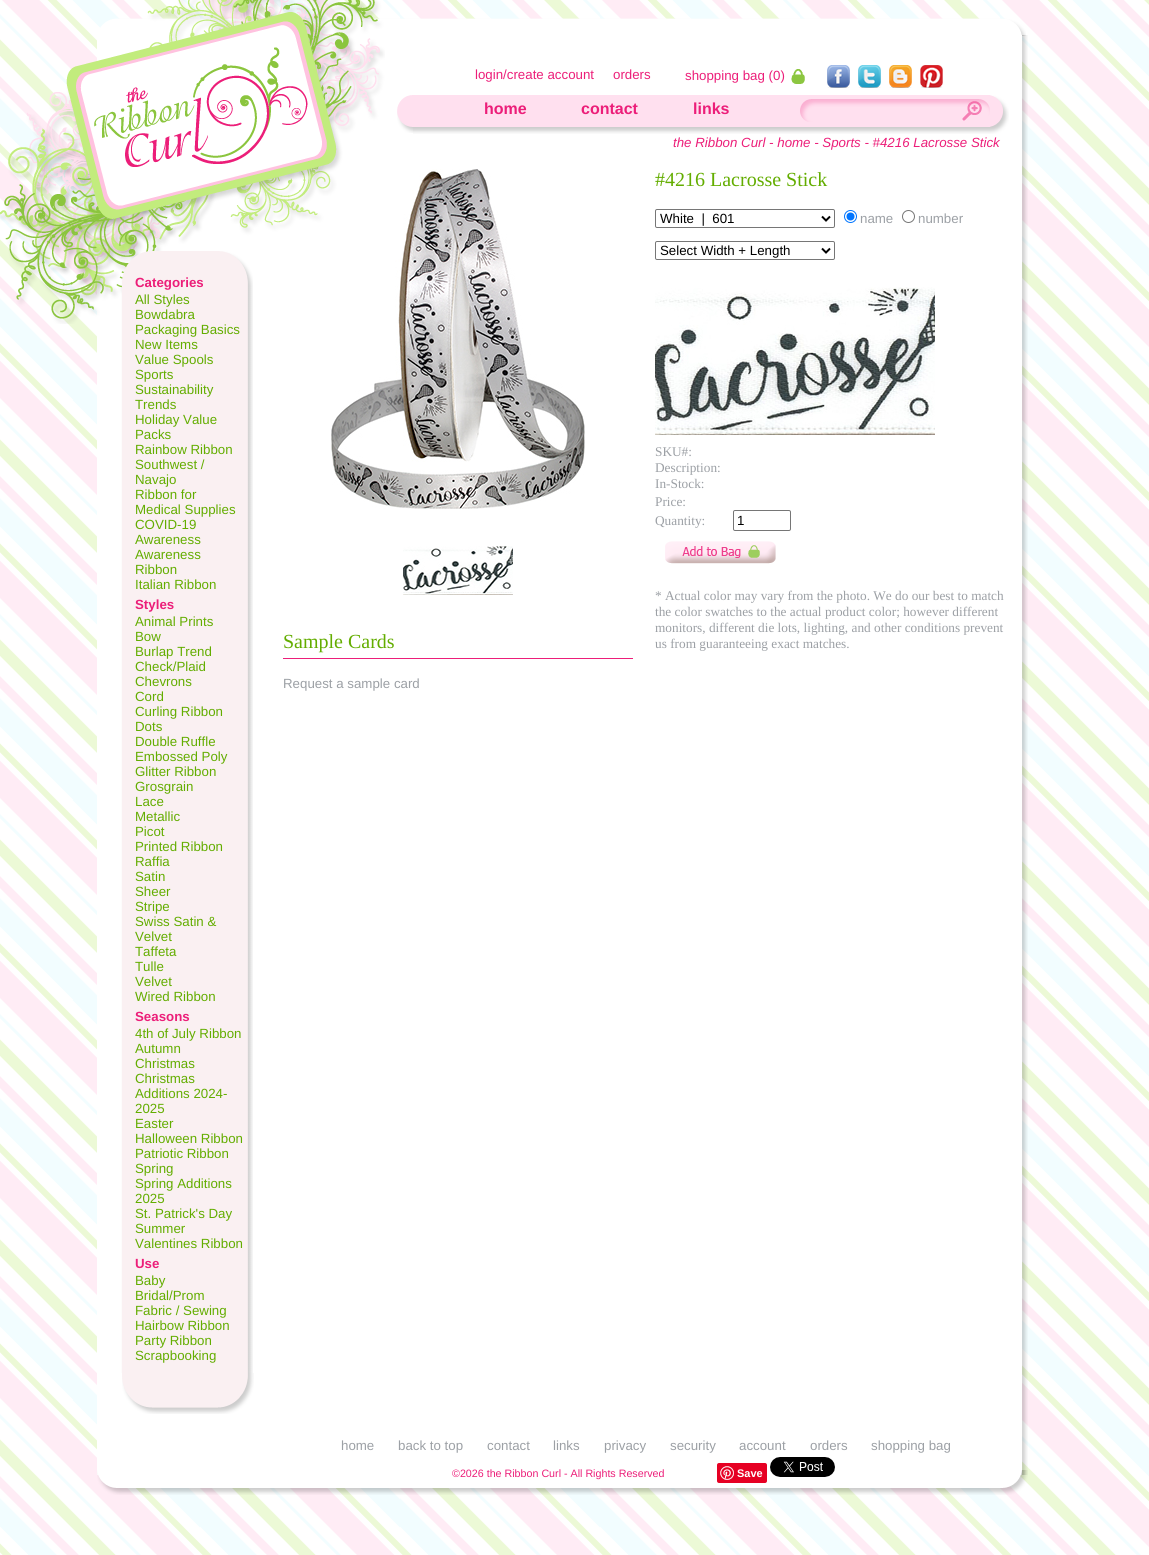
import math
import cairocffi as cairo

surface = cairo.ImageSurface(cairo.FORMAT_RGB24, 1149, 1555)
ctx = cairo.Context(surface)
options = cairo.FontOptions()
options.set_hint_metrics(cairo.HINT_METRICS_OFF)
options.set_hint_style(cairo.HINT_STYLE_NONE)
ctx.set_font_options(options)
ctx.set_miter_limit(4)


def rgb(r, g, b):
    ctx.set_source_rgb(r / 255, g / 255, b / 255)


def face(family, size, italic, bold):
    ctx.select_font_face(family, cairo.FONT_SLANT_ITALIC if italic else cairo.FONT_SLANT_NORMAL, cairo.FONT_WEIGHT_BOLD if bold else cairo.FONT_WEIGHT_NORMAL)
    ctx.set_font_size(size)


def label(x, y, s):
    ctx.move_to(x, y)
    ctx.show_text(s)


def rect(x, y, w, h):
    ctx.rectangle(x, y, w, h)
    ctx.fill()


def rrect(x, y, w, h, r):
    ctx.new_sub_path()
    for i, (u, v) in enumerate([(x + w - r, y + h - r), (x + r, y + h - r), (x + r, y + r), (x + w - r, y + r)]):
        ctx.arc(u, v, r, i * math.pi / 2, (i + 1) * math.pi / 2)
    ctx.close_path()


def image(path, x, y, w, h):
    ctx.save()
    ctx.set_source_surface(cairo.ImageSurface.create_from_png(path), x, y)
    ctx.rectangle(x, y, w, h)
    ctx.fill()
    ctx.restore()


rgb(255, 255, 255)
ctx.paint()
image('image0.png', 0, 0, 1149, 1555)
image('image1.png', 100, 18, 926, 18)
image('image2.png', 97, 35, 931, 1440)
image('image18.png', 331, 169, 254, 340)
image('image3.png', 0, 0, 385, 324)
face('Liberation Sans', 13.3, 0, 0)
rgb(236, 30, 121)
label(475, 79, 'login/create account')
label(613, 79, 'orders')
label(685, 80, 'shopping bag (0)')
image('image4.png', 791, 69, 14, 15)
image('image5.png', 827, 65, 23, 23)
image('image6.png', 858, 65, 23, 23)
image('image7.png', 889, 65, 23, 23)
image('image8.png', 920, 65, 23, 23)
image('image9.png', 397, 95, 16, 38)
image('image10.png', 413, 95, 577, 39)
face('Liberation Sans', 16, 0, 1)
label(484, 114, 'home')
label(581, 114, 'contact')
label(693, 114, 'links')
image('image11.png', 800, 99, 190, 23)
image('image12.png', 990, 95, 19, 39)
face('Liberation Sans', 13.3, 1, 0)
label(673, 147, 'the Ribbon Curl - home - Sports - #4216 Lacrosse Stick')
image('image13.png', 122, 251, 131, 34)
image('image14.png', 121, 285, 132, 1088)
face('Liberation Sans', 13.3, 0, 1)
label(135, 287, 'Categories')
face('Liberation Sans', 13.3, 0, 0)
rgb(99, 173, 0)
label(135, 304, 'All Styles')
label(135, 319, 'Bowdabra')
label(135, 334, 'Packaging Basics')
label(135, 349, 'New Items')
label(135, 364, 'Value Spools')
label(135, 379, 'Sports')
label(135, 394, 'Sustainability')
label(135, 409, 'Trends')
label(135, 424, 'Holiday Value')
label(135, 439, 'Packs')
label(135, 454, 'Rainbow Ribbon')
label(135, 469, 'Southwest /')
label(135, 484, 'Navajo')
label(135, 499, 'Ribbon for')
label(135, 514, 'Medical Supplies')
label(135, 529, 'COVID-19')
label(135, 544, 'Awareness')
label(135, 559, 'Awareness')
label(135, 574, 'Ribbon')
label(135, 589, 'Italian Ribbon')
face('Liberation Sans', 13.3, 0, 1)
rgb(236, 30, 121)
label(135, 609, 'Styles')
face('Liberation Sans', 13.3, 0, 0)
rgb(99, 173, 0)
label(135, 626, 'Animal Prints')
label(135, 641, 'Bow')
label(135, 656, 'Burlap Trend')
label(135, 671, 'Check/Plaid')
label(135, 686, 'Chevrons')
label(135, 701, 'Cord')
label(135, 716, 'Curling Ribbon')
label(135, 731, 'Dots')
label(135, 746, 'Double Ruffle')
label(135, 761, 'Embossed Poly')
label(135, 776, 'Glitter Ribbon')
label(135, 791, 'Grosgrain')
label(135, 806, 'Lace')
label(135, 821, 'Metallic')
label(135, 836, 'Picot')
label(135, 851, 'Printed Ribbon')
label(135, 866, 'Raffia')
label(135, 881, 'Satin')
label(135, 896, 'Sheer')
label(135, 911, 'Stripe')
label(135, 926, 'Swiss Satin &')
label(135, 941, 'Velvet')
label(135, 956, 'Taffeta')
label(135, 971, 'Tulle')
label(135, 986, 'Velvet')
label(135, 1001, 'Wired Ribbon')
face('Liberation Sans', 13.3, 0, 1)
rgb(236, 30, 121)
label(135, 1021, 'Seasons')
face('Liberation Sans', 13.3, 0, 0)
rgb(99, 173, 0)
label(135, 1038, '4th of July Ribbon')
label(135, 1053, 'Autumn')
label(135, 1068, 'Christmas')
label(135, 1083, 'Christmas')
label(135, 1098, 'Additions 2024-')
label(135, 1113, '2025')
label(135, 1128, 'Easter')
label(135, 1143, 'Halloween Ribbon')
label(135, 1158, 'Patriotic Ribbon')
label(135, 1173, 'Spring')
label(135, 1188, 'Spring Additions')
label(135, 1203, '2025')
label(135, 1218, 'St. Patrick\'s Day')
label(135, 1233, 'Summer')
label(135, 1248, 'Valentines Ribbon')
face('Liberation Sans', 13.3, 0, 1)
rgb(236, 30, 121)
label(135, 1268, 'Use')
face('Liberation Sans', 13.3, 0, 0)
rgb(99, 173, 0)
label(135, 1285, 'Baby')
label(135, 1300, 'Bridal/Prom')
label(135, 1315, 'Fabric / Sewing')
label(135, 1330, 'Hairbow Ribbon')
label(135, 1345, 'Party Ribbon')
label(135, 1360, 'Scrapbooking')
image('image15.png', 122, 1373, 132, 41)
face('Liberation Serif', 20, 0, 0)
label(655, 186, '#4216 Lacrosse Stick')
rrect(655.5, 209.5, 179, 18, 1.5)
rgb(118, 118, 118)
ctx.set_line_width(1)
ctx.stroke()
ctx.new_path()
ctx.move_to(822, 216.5)
ctx.line_to(826, 220.5)
ctx.line_to(830, 216.5)
rgb(0, 0, 0)
ctx.set_line_width(2)
ctx.stroke()
face('Liberation Sans', 13.3, 0, 0)
label(660, 223, 'White  |  601')
ctx.new_path()
ctx.arc(850.5, 216.5, 6, 0, 2 * math.pi)
rgb(0, 117, 255)
ctx.set_line_width(1)
ctx.stroke()
ctx.arc(850.5, 216.5, 4, 0, 2 * math.pi)
ctx.fill()
rgb(156, 160, 165)
label(860, 223, 'name')
ctx.new_path()
ctx.arc(908.5, 216.5, 6, 0, 2 * math.pi)
rgb(118, 118, 118)
ctx.stroke()
rgb(156, 160, 165)
label(918, 223, 'number')
rrect(655.5, 241.5, 179, 18, 1.5)
rgb(118, 118, 118)
ctx.stroke()
ctx.new_path()
ctx.move_to(822, 248.5)
ctx.line_to(826, 252.5)
ctx.line_to(830, 248.5)
rgb(0, 0, 0)
ctx.set_line_width(2)
ctx.stroke()
label(660, 255, 'Select Width + Length')
image('image16.png', 655, 287, 280, 148)
face('Liberation Serif', 13.3, 0, 0)
rgb(156, 160, 165)
label(655, 456, 'SKU#:')
label(655, 472, 'Description:')
label(655, 488, 'In-Stock:')
label(655, 506, 'Price:')
label(655, 525, 'Quantity:')
rrect(733.5, 510.5, 57, 20, 1.5)
rgb(118, 118, 118)
ctx.set_line_width(1)
ctx.stroke()
face('Liberation Sans', 13.3, 0, 0)
rgb(0, 0, 0)
label(737, 525, '1')
image('image17.png', 665, 541, 111, 23)
face('Liberation Serif', 13.3, 0, 0)
rgb(156, 160, 165)
label(655, 600, '* Actual color may vary from the photo. We do our best to match')
label(655, 616, 'the color swatches to the actual product color; however different')
label(655, 632, 'monitors, different die lots, lighting, and other conditions prevent')
label(655, 648, 'us from guaranteeing exact matches.')
image('image19.png', 403, 546, 110, 49)
face('Liberation Serif', 20, 0, 0)
rgb(99, 173, 0)
label(283, 648, 'Sample Cards')
rgb(236, 30, 121)
rect(283, 658, 350, 1)
face('Liberation Sans', 13.3, 0, 0)
rgb(156, 160, 165)
label(283, 688, 'Request a sample card')
label(341, 1450, 'home')
label(398, 1450, 'back to top')
label(487, 1450, 'contact')
label(553, 1450, 'links')
label(604, 1450, 'privacy')
label(670, 1450, 'security')
label(739, 1450, 'account')
label(810, 1450, 'orders')
label(871, 1450, 'shopping bag')
image('image22.png', 97, 1470, 931, 25)
face('Liberation Sans', 10.7, 0, 0)
rgb(236, 30, 121)
label(452, 1477, '©2026 the Ribbon Curl - All Rights Reserved')
rgb(230, 0, 35)
rrect(717, 1463, 50, 20, 2)
ctx.fill()
image('image20.png', 720, 1466, 14, 14)
face('Liberation Sans', 11, 0, 1)
rgb(255, 255, 255)
label(737, 1477, 'Save')
image('image21.png', 770, 1457, 65, 20)
surface.write_to_png('render.png')
